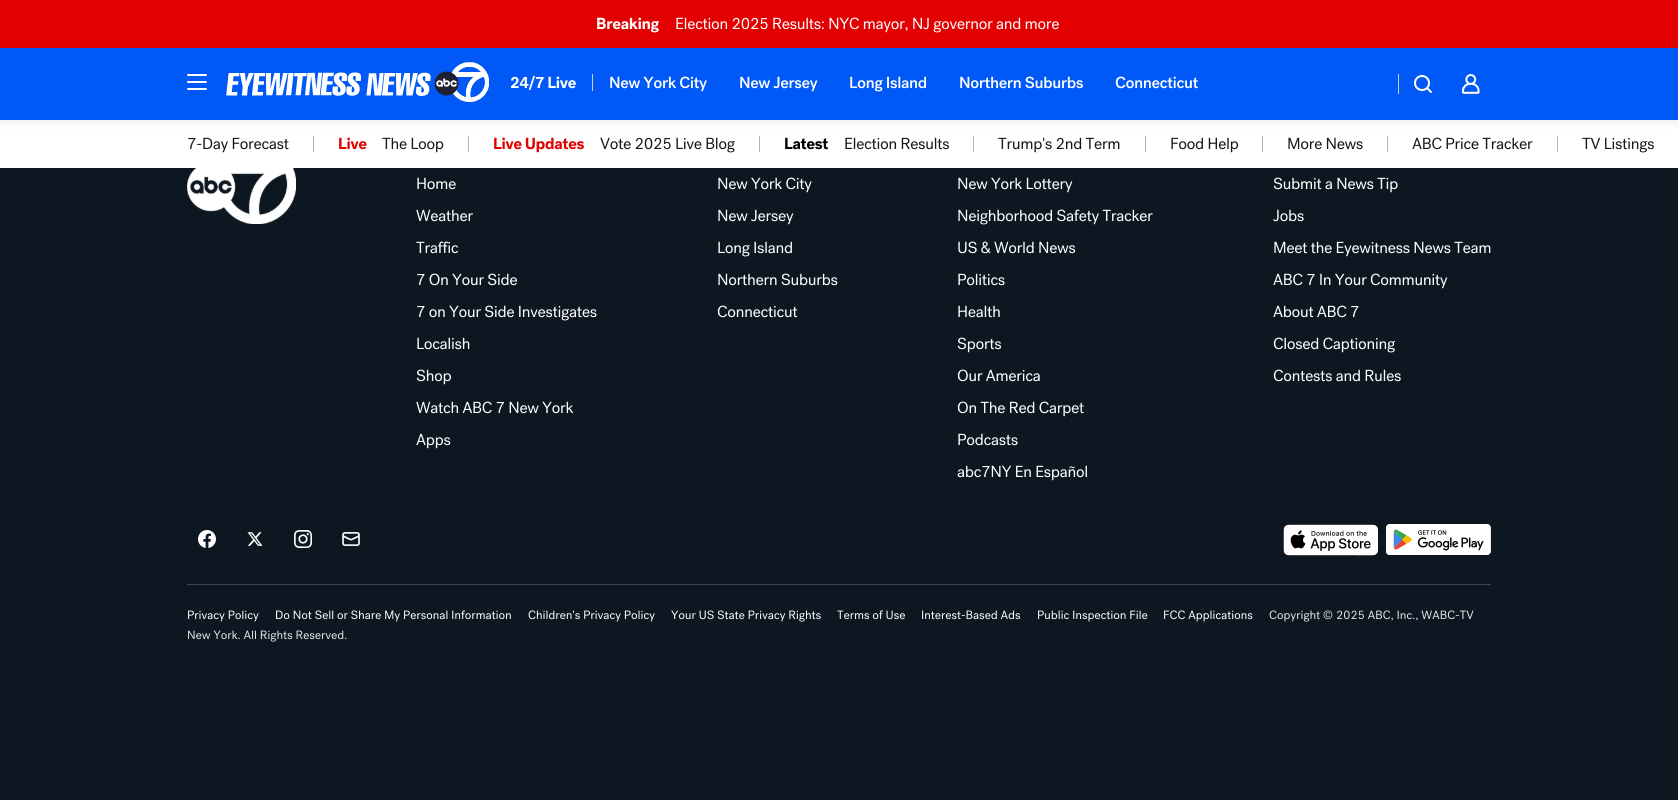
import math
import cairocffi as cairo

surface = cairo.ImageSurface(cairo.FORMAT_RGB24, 1678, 800)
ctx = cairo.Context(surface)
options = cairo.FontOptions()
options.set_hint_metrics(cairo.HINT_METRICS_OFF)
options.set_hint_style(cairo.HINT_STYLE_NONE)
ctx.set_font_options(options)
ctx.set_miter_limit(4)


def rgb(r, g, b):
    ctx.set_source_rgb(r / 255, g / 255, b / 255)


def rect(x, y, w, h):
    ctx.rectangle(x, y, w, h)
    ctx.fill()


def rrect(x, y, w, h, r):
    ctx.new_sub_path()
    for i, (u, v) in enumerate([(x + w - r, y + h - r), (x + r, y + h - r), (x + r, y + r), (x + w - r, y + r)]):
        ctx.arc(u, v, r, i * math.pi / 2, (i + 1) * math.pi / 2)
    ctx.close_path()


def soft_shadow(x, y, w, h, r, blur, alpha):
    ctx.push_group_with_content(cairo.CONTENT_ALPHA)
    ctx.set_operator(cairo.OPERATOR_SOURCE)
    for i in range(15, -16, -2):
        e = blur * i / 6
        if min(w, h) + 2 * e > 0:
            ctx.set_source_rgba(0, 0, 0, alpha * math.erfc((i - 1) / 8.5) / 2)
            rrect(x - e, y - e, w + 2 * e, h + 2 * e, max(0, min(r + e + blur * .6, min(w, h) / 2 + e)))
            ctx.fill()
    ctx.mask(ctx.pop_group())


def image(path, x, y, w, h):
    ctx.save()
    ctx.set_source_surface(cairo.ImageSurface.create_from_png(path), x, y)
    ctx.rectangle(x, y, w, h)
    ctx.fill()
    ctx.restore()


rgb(13, 23, 33)
ctx.paint()
rgb(227, 0, 0)
rect(0, 0, 1678, 48)
image('image0.png', 597, 17, 62, 16)
image('image1.png', 676, 17, 383, 16)
rgb(255, 255, 255)
rect(0, 120, 1678, 48)
image('image11.png', 188, 137, 101, 16)
rgb(176, 181, 190)
rect(313, 136, 1, 16)
image('image12.png', 339, 137, 28, 13)
image('image13.png', 382, 137, 62, 16)
rect(468, 136, 1, 16)
image('image14.png', 494, 137, 90, 16)
image('image15.png', 600, 137, 135, 16)
rect(759, 136, 1, 16)
image('image16.png', 785, 137, 44, 13)
image('image17.png', 845, 137, 104, 13)
rect(973, 136, 1, 16)
image('image18.png', 998, 137, 122, 16)
rect(1145, 136, 1, 16)
image('image19.png', 1171, 137, 68, 16)
rect(1262, 136, 1, 16)
image('image20.png', 1288, 137, 75, 13)
rect(1387, 136, 1, 16)
image('image21.png', 1412, 137, 121, 13)
rect(1557, 136, 1, 16)
image('image22.png', 1582, 137, 72, 16)
rgb(0, 0, 0)
soft_shadow(0, 50, 1678, 72, 0, 5, 0.08)
rgb(0, 88, 246)
rect(0, 48, 1678, 72)
rgb(255, 255, 255)
rrect(187, 81, 20, 2, 1)
ctx.fill()
rrect(187, 74, 20, 2, 1)
ctx.fill()
rrect(187, 88, 20, 2, 1)
ctx.fill()
image('image2.png', 226, 62, 263, 40)
image('image3.png', 510, 75, 66, 15)
rgb(206, 207, 207)
rect(592, 74, 1, 17)
image('image4.png', 610, 76, 97, 16)
image('image5.png', 740, 76, 78, 16)
image('image6.png', 850, 76, 77, 16)
image('image7.png', 960, 76, 123, 13)
image('image8.png', 1115, 76, 83, 13)
rect(1398, 74, 1, 20)
image('image9.png', 1414, 75, 18, 18)
image('image10.png', 1462, 74, 18, 20)
image('image23.png', 187, 168, 109, 56)
image('image24.png', 417, 177, 39, 13)
image('image25.png', 416, 209, 57, 13)
image('image26.png', 416, 241, 43, 13)
image('image27.png', 417, 273, 100, 13)
image('image28.png', 417, 305, 180, 16)
image('image29.png', 417, 337, 53, 13)
image('image30.png', 416, 369, 35, 16)
image('image31.png', 416, 401, 158, 13)
image('image32.png', 416, 433, 35, 16)
image('image33.png', 718, 177, 94, 16)
image('image34.png', 718, 209, 76, 16)
image('image35.png', 718, 241, 74, 16)
image('image36.png', 718, 273, 120, 13)
image('image37.png', 717, 305, 81, 13)
image('image38.png', 958, 177, 115, 16)
image('image39.png', 958, 209, 195, 16)
image('image40.png', 958, 241, 118, 13)
image('image41.png', 958, 273, 47, 13)
image('image42.png', 958, 305, 42, 13)
image('image43.png', 957, 337, 45, 16)
image('image44.png', 957, 369, 83, 13)
image('image45.png', 957, 401, 127, 16)
image('image46.png', 958, 433, 60, 13)
image('image47.png', 957, 465, 130, 16)
image('image48.png', 1273, 177, 125, 16)
image('image49.png', 1273, 209, 31, 13)
image('image50.png', 1274, 241, 217, 16)
image('image51.png', 1273, 273, 175, 16)
image('image52.png', 1273, 305, 86, 13)
image('image53.png', 1273, 337, 123, 16)
image('image54.png', 1273, 369, 128, 13)
image('image55.png', 198, 530, 18, 18)
image('image56.png', 247, 532, 16, 14)
image('image57.png', 294, 530, 18, 18)
image('image58.png', 342, 532, 18, 14)
image('image59.png', 1283, 524, 95, 32)
image('image60.png', 1386, 524, 105, 31)
rgb(61, 69, 77)
rect(187, 584, 1304, 1)
image('image61.png', 188, 610, 71, 12)
image('image62.png', 276, 610, 235, 12)
image('image63.png', 528, 610, 127, 12)
image('image64.png', 671, 610, 150, 12)
image('image65.png', 837, 610, 68, 10)
image('image66.png', 922, 610, 99, 10)
image('image67.png', 1038, 610, 110, 12)
image('image68.png', 1164, 610, 89, 12)
image('image69.png', 1269, 610, 64, 12)
image('image70.png', 1337, 610, 137, 11)
image('image71.png', 188, 630, 159, 12)
surface.write_to_png('render.png')
